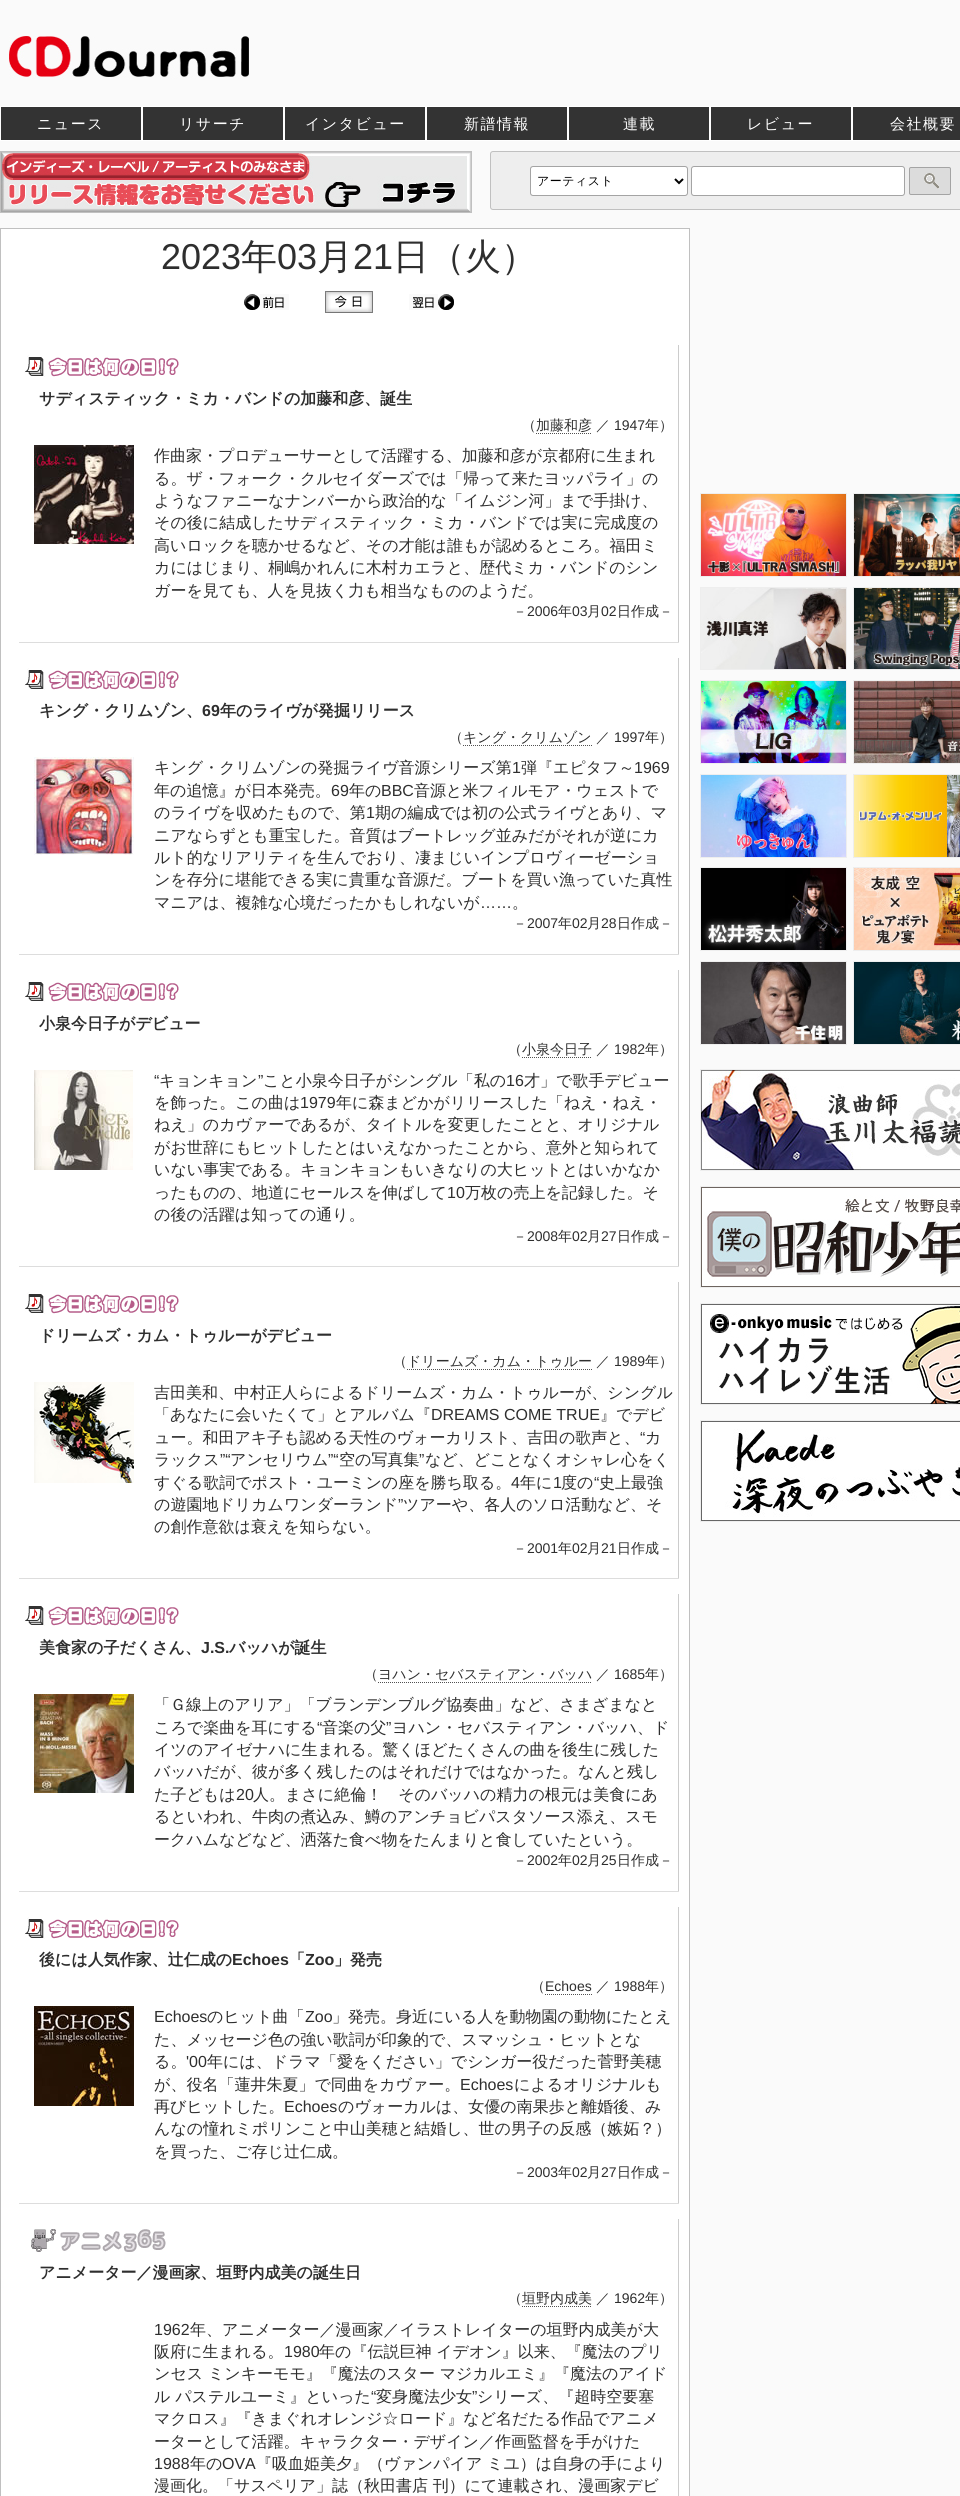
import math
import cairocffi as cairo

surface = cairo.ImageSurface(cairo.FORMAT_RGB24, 960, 2496)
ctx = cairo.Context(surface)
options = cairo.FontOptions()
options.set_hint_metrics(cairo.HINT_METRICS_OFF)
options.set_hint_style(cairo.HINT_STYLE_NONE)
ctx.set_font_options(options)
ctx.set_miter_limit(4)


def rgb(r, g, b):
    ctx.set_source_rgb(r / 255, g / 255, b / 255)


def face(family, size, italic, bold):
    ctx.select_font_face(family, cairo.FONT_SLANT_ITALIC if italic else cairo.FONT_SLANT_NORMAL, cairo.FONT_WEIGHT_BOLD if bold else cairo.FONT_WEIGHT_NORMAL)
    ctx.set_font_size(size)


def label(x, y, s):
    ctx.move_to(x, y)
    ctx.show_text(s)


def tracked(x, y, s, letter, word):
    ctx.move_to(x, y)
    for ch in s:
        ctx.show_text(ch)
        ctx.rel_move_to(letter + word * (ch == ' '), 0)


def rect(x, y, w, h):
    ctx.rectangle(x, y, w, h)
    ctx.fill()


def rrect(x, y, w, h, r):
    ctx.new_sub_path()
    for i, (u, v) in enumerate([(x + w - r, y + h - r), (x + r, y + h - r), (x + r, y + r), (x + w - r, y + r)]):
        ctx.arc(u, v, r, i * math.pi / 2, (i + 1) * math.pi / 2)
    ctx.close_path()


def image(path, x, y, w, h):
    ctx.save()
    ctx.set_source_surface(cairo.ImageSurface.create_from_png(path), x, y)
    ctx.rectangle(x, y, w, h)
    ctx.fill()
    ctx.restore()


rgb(250, 250, 250)
ctx.paint()
image('image0.png', 9, 36, 240, 43)
ctx.rectangle(0.5, 106.5, 141, 34)
rgb(255, 255, 255)
ctx.set_line_width(1)
ctx.stroke()
rgb(51, 51, 51)
rect(1, 107, 140, 33)
face('WenQuanYi Zen Hei Medium', 15, 0, 0)
rgb(255, 255, 255)
tracked(37, 129, 'ニュース', 1.5, 0)
ctx.rectangle(142.5, 106.5, 141, 34)
ctx.stroke()
rgb(51, 51, 51)
rect(143, 107, 140, 33)
rgb(255, 255, 255)
tracked(179, 129, 'リサーチ', 1.5, 0)
ctx.rectangle(284.5, 106.5, 141, 34)
ctx.stroke()
rgb(51, 51, 51)
rect(285, 107, 140, 33)
rgb(255, 255, 255)
tracked(305, 129, 'インタビュー', 1.5, 0)
ctx.rectangle(426.5, 106.5, 141, 34)
ctx.stroke()
rgb(51, 51, 51)
rect(427, 107, 140, 33)
rgb(255, 255, 255)
tracked(464, 129, '新譜情報', 1.5, 0)
ctx.rectangle(568.5, 106.5, 141, 34)
ctx.stroke()
rgb(51, 51, 51)
rect(569, 107, 140, 33)
rgb(255, 255, 255)
tracked(623, 129, '連載', 1.5, 0)
ctx.rectangle(710.5, 106.5, 141, 34)
ctx.stroke()
rgb(51, 51, 51)
rect(711, 107, 140, 33)
rgb(255, 255, 255)
tracked(747, 129, 'レビュー', 1.5, 0)
ctx.rectangle(852.5, 106.5, 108, 34)
ctx.stroke()
rgb(51, 51, 51)
rect(853, 107, 107, 33)
rgb(255, 255, 255)
tracked(890, 129, '会社概要', 1.5, 0)
ctx.rectangle(0.5, 151.5, 471, 61)
rgb(192, 192, 192)
ctx.stroke()
image('image1.png', 1, 152, 470, 60)
rgb(238, 238, 238)
rrect(490.5, 151.5, 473, 58, 2.5)
ctx.fill_preserve()
rgb(192, 192, 192)
ctx.stroke()
rgb(255, 255, 255)
rrect(531, 167, 156, 28, 2)
ctx.fill()
ctx.new_path()
ctx.move_to(675, 179)
ctx.line_to(679, 183)
ctx.line_to(683, 179)
rgb(0, 0, 0)
ctx.set_line_width(2)
ctx.stroke()
rrect(530.5, 166.5, 157, 29, 2.5)
rgb(164, 164, 164)
ctx.set_line_width(1)
ctx.stroke()
face('WenQuanYi Zen Hei Medium', 12, 0, 0)
rgb(0, 0, 0)
tracked(537, 185, 'アーティスト', 0.5, 0)
rgb(255, 255, 255)
rrect(691.5, 166.5, 213, 29, 2.5)
ctx.fill_preserve()
rgb(164, 164, 164)
ctx.stroke()
rgb(220, 220, 220)
rrect(909, 167, 42, 28, 2)
ctx.fill()
image('image2.png', 924, 173, 15, 16)
rrect(909.5, 167.5, 41, 27, 1.5)
rgb(164, 164, 164)
ctx.stroke()
rgb(255, 255, 255)
ctx.rectangle(0.5, 228.5, 689, 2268)
ctx.fill_preserve()
rgb(192, 192, 192)
ctx.stroke()
face('Liberation Sans', 36, 0, 0)
rgb(46, 46, 46)
label(161, 269, '2023')
face('WenQuanYi Zen Hei Medium', 36, 0, 0)
label(241, 269, '年')
face('Liberation Sans', 36, 0, 0)
label(277, 269, '03')
face('WenQuanYi Zen Hei Medium', 36, 0, 0)
label(317, 269, '月')
face('Liberation Sans', 36, 0, 0)
label(353, 269, '21')
face('WenQuanYi Zen Hei Medium', 36, 0, 0)
label(393, 269, '日（火）')
image('image3.png', 244, 294, 45, 16)
image('image4.png', 325, 291, 48, 22)
image('image5.png', 409, 294, 45, 16)
rgb(204, 204, 204)
rect(678, 345, 1, 298)
rgb(221, 221, 221)
rect(19, 642, 660, 1)
image('image6.png', 24, 355, 155, 22)
face('WenQuanYi Zen Hei', 16, 0, 1)
rgb(46, 46, 46)
label(39, 404, 'サディスティック・ミカ・バンドの加藤和彦、誕生')
face('WenQuanYi Zen Hei Medium', 14, 0, 0)
label(522, 430, '（加藤和彦')
label(596, 430, '／')
face('Liberation Sans', 14, 0, 0)
label(614, 430, '1947')
face('WenQuanYi Zen Hei Medium', 14, 0, 0)
label(645, 430, '年）')
ctx.new_path()
ctx.move_to(536, 433.5)
ctx.line_to(592, 433.5)
rgb(81, 81, 81)
ctx.set_dash([1, 1])
ctx.stroke()
image('image7.png', 34, 445, 100, 99)
face('WenQuanYi Zen Hei Medium', 16, 0, 0)
rgb(46, 46, 46)
label(154, 461, '作曲家・プロデューサーとして活躍する、加藤和彦が京都府に生まれ')
label(154, 484, 'る。ザ・フォーク・クルセイダーズでは「帰って来たヨッパライ」の')
label(154, 506, 'ようなファニーなナンバーから政治的な「イムジン河」まで手掛け、')
label(154, 528, 'その後に結成したサディスティック・ミカ・バンドでは実に完成度の')
label(154, 551, '高いロックを聴かせるなど、その才能は誰もが認めるところ。福田ミ')
label(154, 573, 'カにはじまり、桐嶋かれんに木村カエラと、歴代ミカ・バンドのシン')
label(154, 596, 'ガーを見ても、人を見抜く力も相当なもののようだ。')
face('WenQuanYi Zen Hei Medium', 14, 0, 0)
label(513, 616, '－')
face('Liberation Sans', 14, 0, 0)
label(527, 616, '2006')
face('WenQuanYi Zen Hei Medium', 14, 0, 0)
label(558, 616, '年')
face('Liberation Sans', 14, 0, 0)
label(572, 616, '03')
face('WenQuanYi Zen Hei Medium', 14, 0, 0)
label(587, 616, '月')
face('Liberation Sans', 14, 0, 0)
label(601, 616, '02')
face('WenQuanYi Zen Hei Medium', 14, 0, 0)
label(617, 616, '日作成－')
rgb(204, 204, 204)
rect(678, 658, 1, 297)
rgb(221, 221, 221)
rect(19, 954, 660, 1)
image('image6.png', 24, 668, 155, 22)
face('WenQuanYi Zen Hei', 16, 0, 1)
rgb(46, 46, 46)
label(39, 716, 'キング・クリムゾン、')
face('Liberation Sans', 16, 0, 1)
label(202, 716, '69')
face('WenQuanYi Zen Hei', 16, 0, 1)
label(220, 716, '年のライヴが発掘リリース')
face('WenQuanYi Zen Hei Medium', 14, 0, 0)
label(449, 742, '（キング・クリムゾン')
label(596, 742, '／')
face('Liberation Sans', 14, 0, 0)
label(614, 742, '1997')
face('WenQuanYi Zen Hei Medium', 14, 0, 0)
label(645, 742, '年）')
ctx.new_path()
ctx.move_to(463, 745.5)
ctx.line_to(592, 745.5)
rgb(81, 81, 81)
ctx.stroke()
image('image8.png', 34, 757, 100, 98)
face('WenQuanYi Zen Hei Medium', 16, 0, 0)
rgb(46, 46, 46)
label(154, 773, 'キング・クリムゾンの発掘ライヴ音源シリーズ第')
face('Liberation Sans', 16, 0, 0)
label(512, 773, '1')
face('WenQuanYi Zen Hei Medium', 16, 0, 0)
label(521, 773, '弾『エピタフ～')
face('Liberation Sans', 16, 0, 0)
label(634, 773, '1969')
face('WenQuanYi Zen Hei Medium', 16, 0, 0)
label(154, 796, '年の追憶』が日本発売。')
face('Liberation Sans', 16, 0, 0)
label(331, 796, '69')
face('WenQuanYi Zen Hei Medium', 16, 0, 0)
label(349, 796, '年の')
face('Liberation Sans', 16, 0, 0)
label(381, 796, 'BBC')
face('WenQuanYi Zen Hei Medium', 16, 0, 0)
label(414, 796, '音源と米フィルモア・ウェストで')
label(154, 818, 'のライヴを収めたもので、第')
face('Liberation Sans', 16, 0, 0)
label(366, 818, '1')
face('WenQuanYi Zen Hei Medium', 16, 0, 0)
label(375, 818, '期の編成では初の公式ライヴとあり、マ')
label(154, 841, 'ニアならずとも重宝した。音質はブートレッグ並みだがそれが逆にカ')
label(154, 863, 'ルト的なリアリティを生んでおり、凄まじいインプロヴィーゼーショ')
label(154, 885, 'ンを存分に堪能できる実に貴重な音源だ。ブートを買い漁っていた真性')
label(154, 908, 'マニアは、複雑な心境だったかもしれないが')
face('Liberation Sans', 16, 0, 0)
label(480, 908, '……')
face('WenQuanYi Zen Hei Medium', 16, 0, 0)
label(512, 908, '。')
face('WenQuanYi Zen Hei Medium', 14, 0, 0)
label(513, 928, '－')
face('Liberation Sans', 14, 0, 0)
label(527, 928, '2007')
face('WenQuanYi Zen Hei Medium', 14, 0, 0)
label(558, 928, '年')
face('Liberation Sans', 14, 0, 0)
label(572, 928, '02')
face('WenQuanYi Zen Hei Medium', 14, 0, 0)
label(587, 928, '月')
face('Liberation Sans', 14, 0, 0)
label(601, 928, '28')
face('WenQuanYi Zen Hei Medium', 14, 0, 0)
label(617, 928, '日作成－')
rgb(204, 204, 204)
rect(678, 970, 1, 297)
rgb(221, 221, 221)
rect(19, 1266, 660, 1)
image('image6.png', 24, 980, 155, 22)
face('WenQuanYi Zen Hei', 16, 0, 1)
rgb(46, 46, 46)
label(39, 1029, '小泉今日子がデビュー')
face('WenQuanYi Zen Hei Medium', 14, 0, 0)
label(508, 1054, '（小泉今日子')
label(596, 1054, '／')
face('Liberation Sans', 14, 0, 0)
label(614, 1054, '1982')
face('WenQuanYi Zen Hei Medium', 14, 0, 0)
label(645, 1054, '年）')
ctx.new_path()
ctx.move_to(522, 1057.5)
ctx.line_to(592, 1057.5)
rgb(81, 81, 81)
ctx.stroke()
image('image9.png', 34, 1070, 99, 100)
face('Liberation Sans', 16, 0, 0)
rgb(46, 46, 46)
label(154, 1086, '“')
face('WenQuanYi Zen Hei Medium', 16, 0, 0)
label(159, 1086, 'キョンキョン')
face('Liberation Sans', 16, 0, 0)
label(258, 1086, '”')
face('WenQuanYi Zen Hei Medium', 16, 0, 0)
label(263, 1086, 'こと小泉今日子がシングル「私の')
face('Liberation Sans', 16, 0, 0)
label(506, 1086, '16')
face('WenQuanYi Zen Hei Medium', 16, 0, 0)
label(524, 1086, '才」で歌手デビュー')
label(154, 1108, 'を飾った。この曲は')
face('Liberation Sans', 16, 0, 0)
label(300, 1108, '1979')
face('WenQuanYi Zen Hei Medium', 16, 0, 0)
label(336, 1108, '年に森まどかがリリースした「ねえ・ねえ・')
label(154, 1130, 'ねえ」のカヴァーであるが、タイトルを変更したことと、オリジナル')
label(154, 1153, 'がお世辞にもヒットしたとはいえなかったことから、意外と知られて')
label(154, 1175, 'いない事実である。キョンキョンもいきなりの大ヒットとはいかなか')
label(154, 1198, 'ったものの、地道にセールスを伸ばして')
face('Liberation Sans', 16, 0, 0)
label(447, 1198, '10')
face('WenQuanYi Zen Hei Medium', 16, 0, 0)
label(465, 1198, '万枚の売上を記録した。そ')
label(154, 1220, 'の後の活躍は知っての通り。')
face('WenQuanYi Zen Hei Medium', 14, 0, 0)
label(513, 1241, '－')
face('Liberation Sans', 14, 0, 0)
label(527, 1241, '2008')
face('WenQuanYi Zen Hei Medium', 14, 0, 0)
label(558, 1241, '年')
face('Liberation Sans', 14, 0, 0)
label(572, 1241, '02')
face('WenQuanYi Zen Hei Medium', 14, 0, 0)
label(587, 1241, '月')
face('Liberation Sans', 14, 0, 0)
label(601, 1241, '27')
face('WenQuanYi Zen Hei Medium', 14, 0, 0)
label(617, 1241, '日作成－')
rgb(204, 204, 204)
rect(678, 1282, 1, 297)
rgb(221, 221, 221)
rect(19, 1578, 660, 1)
image('image6.png', 24, 1292, 155, 22)
face('WenQuanYi Zen Hei', 16, 0, 1)
rgb(46, 46, 46)
label(39, 1341, 'ドリームズ・カム・トゥルーがデビュー')
face('WenQuanYi Zen Hei Medium', 14, 0, 0)
label(393, 1366, '（ドリームズ・カム・トゥルー')
label(596, 1366, '／')
face('Liberation Sans', 14, 0, 0)
label(614, 1366, '1989')
face('WenQuanYi Zen Hei Medium', 14, 0, 0)
label(645, 1366, '年）')
ctx.new_path()
ctx.move_to(407, 1369.5)
ctx.line_to(592, 1369.5)
rgb(81, 81, 81)
ctx.stroke()
image('image10.png', 34, 1382, 100, 101)
face('WenQuanYi Zen Hei Medium', 16, 0, 0)
rgb(46, 46, 46)
label(154, 1398, '吉田美和、中村正人らによるドリームズ・カム・トゥルーが、シングル')
label(154, 1420, '「あなたに会いたくて」とアルバム『')
face('Liberation Sans', 16, 0, 0)
label(431, 1420, 'DREAMS COME TRUE')
face('WenQuanYi Zen Hei Medium', 16, 0, 0)
label(600, 1420, '』でデビ')
label(154, 1443, 'ュー。和田アキ子も認める天性のヴォーカリスト、吉田の歌声と、')
face('Liberation Sans', 16, 0, 0)
label(640, 1443, '“')
face('WenQuanYi Zen Hei Medium', 16, 0, 0)
label(645, 1443, 'カ')
label(154, 1465, 'ラックス')
face('Liberation Sans', 16, 0, 0)
label(220, 1465, '”“')
face('WenQuanYi Zen Hei Medium', 16, 0, 0)
label(230, 1465, 'アンセリウム')
face('Liberation Sans', 16, 0, 0)
label(328, 1465, '”“')
face('WenQuanYi Zen Hei Medium', 16, 0, 0)
label(339, 1465, '空の写真集')
face('Liberation Sans', 16, 0, 0)
label(419, 1465, '”')
face('WenQuanYi Zen Hei Medium', 16, 0, 0)
label(425, 1465, 'など、どことなくオシャレ心をく')
label(154, 1488, 'すぐる歌詞でポスト・ユーミンの座を勝ち取る。')
face('Liberation Sans', 16, 0, 0)
label(511, 1488, '4')
face('WenQuanYi Zen Hei Medium', 16, 0, 0)
label(520, 1488, '年に')
face('Liberation Sans', 16, 0, 0)
label(553, 1488, '1')
face('WenQuanYi Zen Hei Medium', 16, 0, 0)
label(561, 1488, '度の')
face('Liberation Sans', 16, 0, 0)
label(594, 1488, '“')
face('WenQuanYi Zen Hei Medium', 16, 0, 0)
label(599, 1488, '史上最強')
label(154, 1510, 'の遊園地ドリカムワンダーランド')
face('Liberation Sans', 16, 0, 0)
label(398, 1510, '”')
face('WenQuanYi Zen Hei Medium', 16, 0, 0)
label(403, 1510, 'ツアーや、各人のソロ活動など、そ')
label(154, 1532, 'の創作意欲は衰えを知らない。')
face('WenQuanYi Zen Hei Medium', 14, 0, 0)
label(513, 1553, '－')
face('Liberation Sans', 14, 0, 0)
label(527, 1553, '2001')
face('WenQuanYi Zen Hei Medium', 14, 0, 0)
label(558, 1553, '年')
face('Liberation Sans', 14, 0, 0)
label(572, 1553, '02')
face('WenQuanYi Zen Hei Medium', 14, 0, 0)
label(587, 1553, '月')
face('Liberation Sans', 14, 0, 0)
label(601, 1553, '21')
face('WenQuanYi Zen Hei Medium', 14, 0, 0)
label(617, 1553, '日作成－')
rgb(204, 204, 204)
rect(678, 1594, 1, 298)
rgb(221, 221, 221)
rect(19, 1891, 660, 1)
image('image6.png', 24, 1604, 155, 22)
face('WenQuanYi Zen Hei', 16, 0, 1)
rgb(46, 46, 46)
label(39, 1653, '美食家の子だくさん、')
face('Liberation Sans', 16, 0, 1)
label(201, 1653, 'J.S.')
face('WenQuanYi Zen Hei', 16, 0, 1)
label(229, 1653, 'バッハが誕生')
face('WenQuanYi Zen Hei Medium', 14, 0, 0)
label(364, 1679, '（ヨハン・セバスティアン・バッハ')
label(596, 1679, '／')
face('Liberation Sans', 14, 0, 0)
label(614, 1679, '1685')
face('WenQuanYi Zen Hei Medium', 14, 0, 0)
label(645, 1679, '年）')
ctx.new_path()
ctx.move_to(378, 1682.5)
ctx.line_to(592, 1682.5)
rgb(81, 81, 81)
ctx.stroke()
image('image11.png', 34, 1694, 100, 99)
face('WenQuanYi Zen Hei Medium', 16, 0, 0)
rgb(46, 46, 46)
label(154, 1710, '「Ｇ線上のアリア」「ブランデンブルグ協奏曲」など、さまざまなと')
label(154, 1733, 'ころで楽曲を耳にする')
face('Liberation Sans', 16, 0, 0)
label(317, 1733, '“')
face('WenQuanYi Zen Hei Medium', 16, 0, 0)
label(322, 1733, '音楽の父')
face('Liberation Sans', 16, 0, 0)
label(386, 1733, '”')
face('WenQuanYi Zen Hei Medium', 16, 0, 0)
label(392, 1733, 'ヨハン・セバスティアン・バッハ、ド')
label(154, 1755, 'イツのアイゼナハに生まれる。驚くほどたくさんの曲を後生に残した')
label(154, 1777, 'バッハだが、彼が多く残したのはそれだけではなかった。なんと残し')
label(154, 1800, 'た子どもは')
face('Liberation Sans', 16, 0, 0)
label(236, 1800, '20')
face('WenQuanYi Zen Hei Medium', 16, 0, 0)
label(253, 1800, '人。まさに絶倫！　そのバッハの精力の根元は美食にあ')
label(154, 1822, 'るといわれ、牛肉の煮込み、鱒のアンチョビパスタソース添え、スモ')
label(154, 1845, 'ークハムなどなど、洒落た食べ物をたんまりと食していたという。')
face('WenQuanYi Zen Hei Medium', 14, 0, 0)
label(513, 1865, '－')
face('Liberation Sans', 14, 0, 0)
label(527, 1865, '2002')
face('WenQuanYi Zen Hei Medium', 14, 0, 0)
label(558, 1865, '年')
face('Liberation Sans', 14, 0, 0)
label(572, 1865, '02')
face('WenQuanYi Zen Hei Medium', 14, 0, 0)
label(587, 1865, '月')
face('Liberation Sans', 14, 0, 0)
label(601, 1865, '25')
face('WenQuanYi Zen Hei Medium', 14, 0, 0)
label(617, 1865, '日作成－')
rgb(204, 204, 204)
rect(678, 1907, 1, 297)
rgb(221, 221, 221)
rect(19, 2203, 660, 1)
image('image6.png', 24, 1917, 155, 22)
face('WenQuanYi Zen Hei', 16, 0, 1)
rgb(46, 46, 46)
label(39, 1965, '後には人気作家、辻仁成の')
face('Liberation Sans', 16, 0, 1)
label(232, 1965, 'Echoes')
face('WenQuanYi Zen Hei', 16, 0, 1)
label(289, 1965, '「')
face('Liberation Sans', 16, 0, 1)
label(305, 1965, 'Zoo')
face('WenQuanYi Zen Hei', 16, 0, 1)
label(334, 1965, '」発売')
face('WenQuanYi Zen Hei Medium', 14, 0, 0)
label(531, 1991, '（')
face('Liberation Sans', 14, 0, 0)
label(545, 1991, 'Echoes')
ctx.new_path()
ctx.move_to(545, 1994.5)
ctx.line_to(592, 1994.5)
rgb(81, 81, 81)
ctx.stroke()
face('WenQuanYi Zen Hei Medium', 14, 0, 0)
rgb(46, 46, 46)
label(596, 1991, '／')
face('Liberation Sans', 14, 0, 0)
label(614, 1991, '1988')
face('WenQuanYi Zen Hei Medium', 14, 0, 0)
label(645, 1991, '年）')
image('image12.png', 34, 2006, 100, 100)
face('Liberation Sans', 16, 0, 0)
label(154, 2022, 'Echoes')
face('WenQuanYi Zen Hei Medium', 16, 0, 0)
label(207, 2022, 'のヒット曲「')
face('Liberation Sans', 16, 0, 0)
label(305, 2022, 'Zoo')
face('WenQuanYi Zen Hei Medium', 16, 0, 0)
label(332, 2022, '」発売。身近にいる人を動物園の動物にたとえ')
label(154, 2045, 'た、メッセージ色の強い歌詞が印象的で、スマッシュ・ヒットとな')
label(154, 2067, 'る。')
face('Liberation Sans', 16, 0, 0)
label(186, 2067, '\'00')
face('WenQuanYi Zen Hei Medium', 16, 0, 0)
label(207, 2067, '年には、ドラマ「愛をください」でシンガー役だった菅野美穂')
label(154, 2090, 'が、役名「蓮井朱夏」で同曲をカヴァー。')
face('Liberation Sans', 16, 0, 0)
label(460, 2090, 'Echoes')
face('WenQuanYi Zen Hei Medium', 16, 0, 0)
label(514, 2090, 'によるオリジナルも')
label(154, 2112, '再びヒットした。')
face('Liberation Sans', 16, 0, 0)
label(284, 2112, 'Echoes')
face('WenQuanYi Zen Hei Medium', 16, 0, 0)
label(338, 2112, 'のヴォーカルは、女優の南果歩と離婚後、み')
label(154, 2134, 'んなの憧れミポリンこと中山美穂と結婚し、世の男子の反感（嫉妬？）')
label(154, 2157, 'を買った、ご存じ辻仁成。')
face('WenQuanYi Zen Hei Medium', 14, 0, 0)
label(513, 2177, '－')
face('Liberation Sans', 14, 0, 0)
label(527, 2177, '2003')
face('WenQuanYi Zen Hei Medium', 14, 0, 0)
label(558, 2177, '年')
face('Liberation Sans', 14, 0, 0)
label(572, 2177, '02')
face('WenQuanYi Zen Hei Medium', 14, 0, 0)
label(587, 2177, '月')
face('Liberation Sans', 14, 0, 0)
label(601, 2177, '27')
face('WenQuanYi Zen Hei Medium', 14, 0, 0)
label(617, 2177, '日作成－')
rgb(204, 204, 204)
rect(678, 2219, 1, 277)
image('image13.png', 31, 2229, 135, 23)
face('WenQuanYi Zen Hei', 16, 0, 1)
rgb(46, 46, 46)
label(39, 2278, 'アニメーター／漫画家、垣野内成美の誕生日')
face('WenQuanYi Zen Hei Medium', 14, 0, 0)
label(508, 2303, '（垣野内成美')
label(596, 2303, '／')
face('Liberation Sans', 14, 0, 0)
label(614, 2303, '1962')
face('WenQuanYi Zen Hei Medium', 14, 0, 0)
label(645, 2303, '年）')
ctx.new_path()
ctx.move_to(522, 2306.5)
ctx.line_to(592, 2306.5)
rgb(81, 81, 81)
ctx.stroke()
face('Liberation Sans', 16, 0, 0)
rgb(46, 46, 46)
label(154, 2335, '1962')
face('WenQuanYi Zen Hei Medium', 16, 0, 0)
label(190, 2335, '年、アニメーター／漫画家／イラストレイターの垣野内成美が大')
label(154, 2357, '阪府に生まれる。')
face('Liberation Sans', 16, 0, 0)
label(284, 2357, '1980')
face('WenQuanYi Zen Hei Medium', 16, 0, 0)
label(319, 2357, '年の『伝説巨神 イデオン』以来、『魔法のプリ')
label(154, 2379, 'ンセス ミンキーモモ』『魔法のスター マジカルエミ』『魔法のアイド')
label(154, 2402, 'ル パステルユーミ』といった')
face('Liberation Sans', 16, 0, 0)
label(371, 2402, '“')
face('WenQuanYi Zen Hei Medium', 16, 0, 0)
label(376, 2402, '変身魔法少女')
face('Liberation Sans', 16, 0, 0)
label(472, 2402, '”')
face('WenQuanYi Zen Hei Medium', 16, 0, 0)
label(477, 2402, 'シリーズ、『超時空要塞')
label(154, 2424, 'マクロス』『きまぐれオレンジ☆ロード』など名だたる作品でアニメ')
label(154, 2447, 'ーターとして活躍。キャラクター・デザイン／作画監督を手がけた')
face('Liberation Sans', 16, 0, 0)
label(154, 2469, '1988')
face('WenQuanYi Zen Hei Medium', 16, 0, 0)
label(190, 2469, '年の')
face('Liberation Sans', 16, 0, 0)
label(222, 2469, 'OVA')
face('WenQuanYi Zen Hei Medium', 16, 0, 0)
label(256, 2469, '『吸血姫美夕』（ヴァンパイア ミユ）は自身の手により')
label(154, 2491, '漫画化。「サスペリア」誌（秋田書店 刊）にて連載され、漫画家デビ')
ctx.rectangle(700.5, 493.5, 146, 83)
rgb(238, 238, 238)
ctx.set_dash([])
ctx.stroke()
ctx.rectangle(853.5, 493.5, 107, 83)
ctx.stroke()
image('image14.png', 701, 494, 145, 82)
image('image15.png', 854, 494, 106, 82)
ctx.rectangle(700.5, 587.5, 146, 82)
ctx.stroke()
ctx.rectangle(853.5, 587.5, 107, 82)
ctx.stroke()
image('image16.png', 701, 588, 145, 81)
image('image17.png', 854, 588, 106, 81)
ctx.rectangle(700.5, 680.5, 146, 83)
ctx.stroke()
ctx.rectangle(853.5, 680.5, 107, 83)
ctx.stroke()
image('image18.png', 701, 681, 145, 82)
image('image19.png', 854, 681, 106, 82)
ctx.rectangle(700.5, 774.5, 146, 83)
ctx.stroke()
ctx.rectangle(853.5, 774.5, 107, 83)
ctx.stroke()
image('image20.png', 701, 775, 145, 82)
image('image21.png', 854, 775, 106, 82)
ctx.rectangle(700.5, 867.5, 146, 83)
ctx.stroke()
ctx.rectangle(853.5, 867.5, 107, 83)
ctx.stroke()
image('image22.png', 701, 868, 145, 82)
image('image23.png', 854, 868, 106, 82)
ctx.rectangle(700.5, 961.5, 146, 83)
ctx.stroke()
ctx.rectangle(853.5, 961.5, 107, 83)
ctx.stroke()
image('image24.png', 701, 962, 145, 82)
image('image25.png', 854, 962, 106, 82)
ctx.rectangle(700.5, 1069.5, 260, 101)
ctx.stroke()
image('image26.png', 701, 1070, 259, 100)
ctx.rectangle(700.5, 1186.5, 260, 101)
ctx.stroke()
image('image27.png', 701, 1187, 259, 100)
ctx.rectangle(700.5, 1303.5, 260, 101)
ctx.stroke()
image('image28.png', 701, 1304, 259, 100)
ctx.rectangle(700.5, 1420.5, 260, 101)
ctx.stroke()
image('image29.png', 701, 1421, 259, 100)
surface.write_to_png('render.png')
